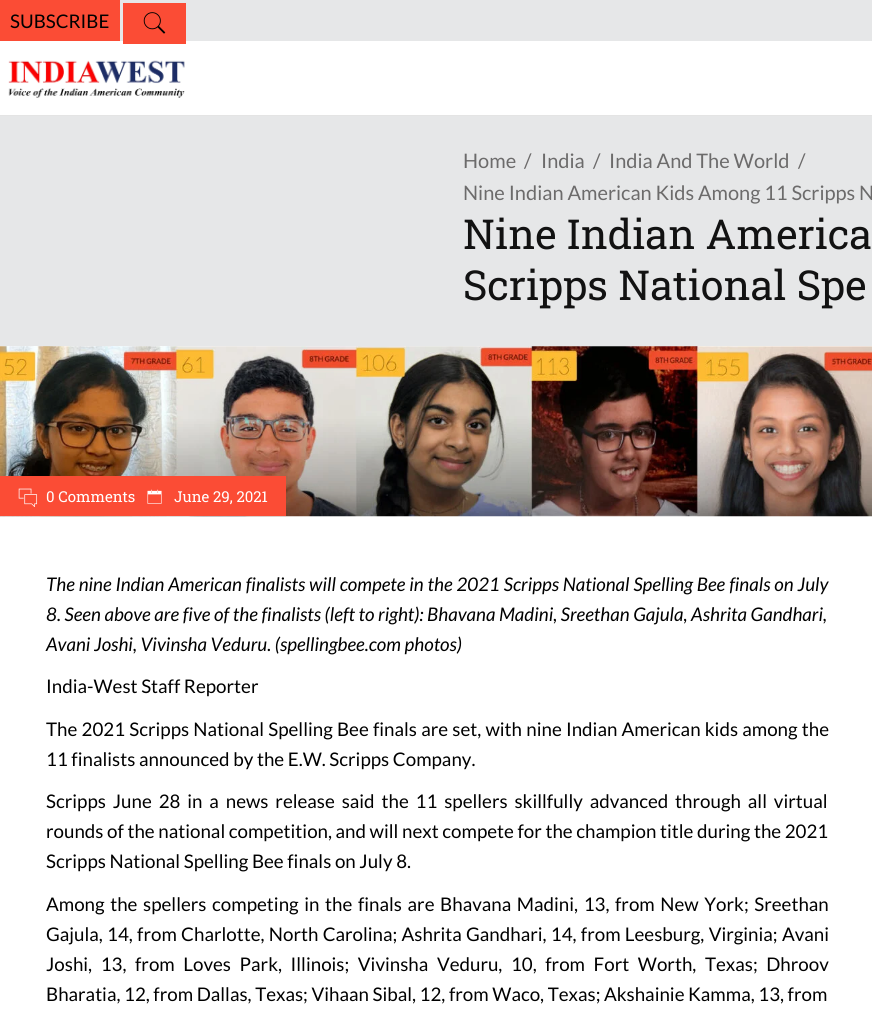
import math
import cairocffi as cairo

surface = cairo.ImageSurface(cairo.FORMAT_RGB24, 872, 1020)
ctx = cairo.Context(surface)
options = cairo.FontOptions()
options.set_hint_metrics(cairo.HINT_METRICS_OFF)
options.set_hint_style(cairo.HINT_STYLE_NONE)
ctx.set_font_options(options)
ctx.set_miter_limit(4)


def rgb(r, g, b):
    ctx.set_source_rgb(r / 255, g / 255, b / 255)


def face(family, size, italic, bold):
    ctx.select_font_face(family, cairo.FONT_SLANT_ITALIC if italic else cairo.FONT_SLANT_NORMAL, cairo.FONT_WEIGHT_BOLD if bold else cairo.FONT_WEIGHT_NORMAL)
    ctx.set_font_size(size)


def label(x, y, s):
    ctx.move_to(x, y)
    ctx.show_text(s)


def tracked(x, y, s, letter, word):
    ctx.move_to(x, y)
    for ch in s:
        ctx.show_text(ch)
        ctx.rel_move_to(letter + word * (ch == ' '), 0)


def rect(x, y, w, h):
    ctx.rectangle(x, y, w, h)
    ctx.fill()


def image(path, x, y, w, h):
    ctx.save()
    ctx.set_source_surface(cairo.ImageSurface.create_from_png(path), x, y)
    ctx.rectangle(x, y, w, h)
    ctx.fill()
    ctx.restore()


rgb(230, 231, 232)
ctx.paint()
rgb(251, 76, 53)
rect(0, 0, 120, 41)
face('Lato', 18.75, 0, 0)
rgb(0, 0, 0)
label(10, 28, 'SUBSCRIBE')
rgb(255, 255, 255)
rect(0, 41, 872, 74)
rgb(251, 76, 53)
rect(123, 3, 63, 41)
image('image0.png', 143, 12, 23, 22)
rgb(228, 228, 228)
rect(0, 115, 872, 1)
image('image1.png', 8, 60, 177, 38)
face('Lato', 20, 0, 0)
rgb(108, 107, 107)
label(463, 168, 'Home')
label(524, 168, '/')
label(541, 168, 'India')
label(593, 168, '/')
label(609, 168, 'India And The World')
label(798, 168, '/')
label(463, 200, 'Nine Indian American Kids Among 11 Scripps N')
face('Roboto Slab', 41.25, 0, 0)
rgb(18, 18, 18)
label(463, 249, 'Nine Indian America')
label(463, 300, 'Scripps National Spe')
rgb(255, 255, 255)
rect(0, 346, 872, 674)
image('image2.png', 0, 346, 872, 171)
rgb(251, 76, 53)
rect(0, 476, 286, 40)
image('image3.png', 18, 488, 20, 19)
face('Roboto Slab', 15, 0, 0)
rgb(255, 255, 255)
label(46, 502, '0 Comments')
image('image4.png', 147, 489, 15, 15)
label(174, 502, 'June 29, 2021')
face('Lato', 18.75, 1, 0)
rgb(0, 0, 0)
tracked(46, 591, 'The nine Indian American finalists will compete in the 2021 Scripps National Spelling Bee finals on July', 0, 0.25)
label(46, 621, '8. Seen above are five of the finalists (left to right): Bhavana Madini, Sreethan Gajula, Ashrita Gandhari,')
label(46, 651, 'Avani Joshi, Vivinsha Veduru. (spellingbee.com photos)')
face('Lato', 18.75, 0, 0)
label(46, 693, 'India-West Staff Reporter')
tracked(46, 736, 'The 2021 Scripps National Spelling Bee finals are set, with nine Indian American kids among the', 0, 0.6)
label(46, 766, '11 finalists announced by the E.W. Scripps Company.')
tracked(46, 808, 'Scripps June 28 in a news release said the 11 spellers skillfully advanced through all virtual', 0, 3.25)
label(46, 838, 'rounds of the national competition, and will next compete for the champion title during the 2021')
label(46, 868, 'Scripps National Spelling Bee finals on July 8.')
tracked(46, 911, 'Among the spellers competing in the finals are Bhavana Madini, 13, from New York; Sreethan', 0, 2)
tracked(46, 941, 'Gajula, 14, from Charlotte, North Carolina; Ashrita Gandhari, 14, from Leesburg, Virginia; Avani', 0, 0.7)
tracked(46, 971, 'Joshi, 13, from Loves Park, Illinois; Vivinsha Veduru, 10, from Fort Worth, Texas; Dhroov', 0, 5)
label(46, 1001, 'Bharatia, 12, from Dallas, Texas; Vihaan Sibal, 12, from Waco, Texas; Akshainie Kamma, 13, from')
surface.write_to_png('render.png')
